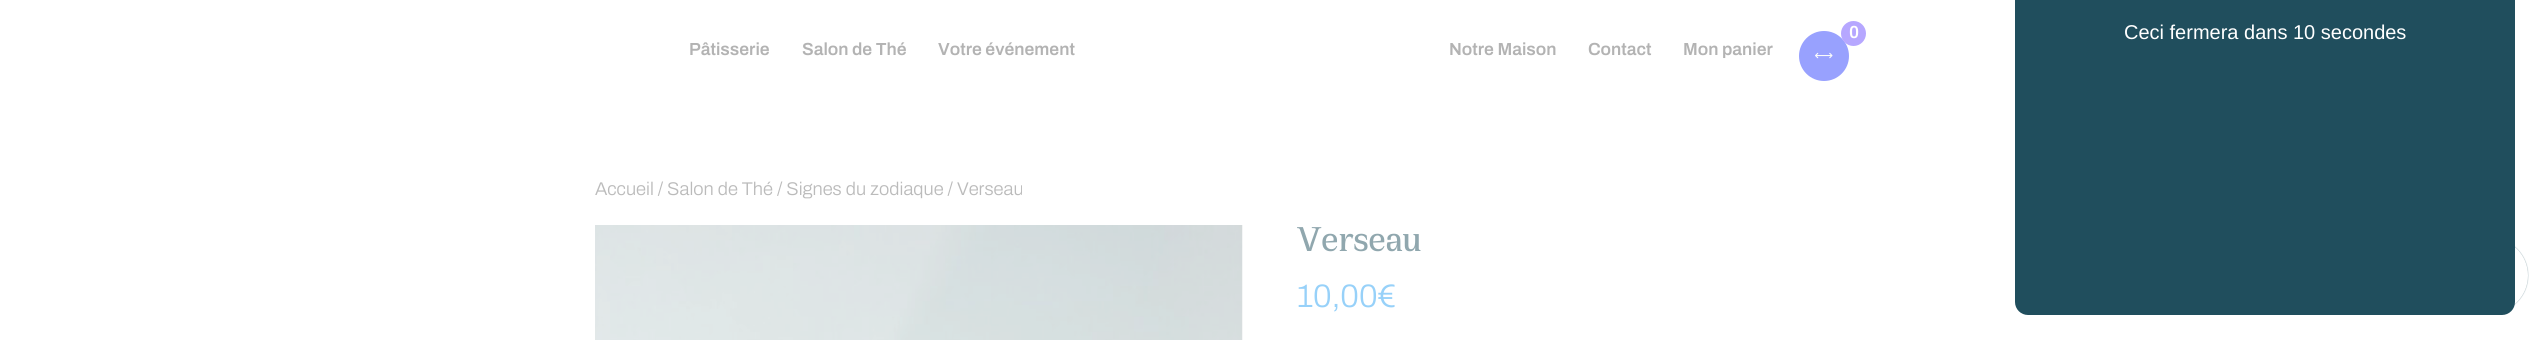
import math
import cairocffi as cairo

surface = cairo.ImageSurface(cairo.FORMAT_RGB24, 2539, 340)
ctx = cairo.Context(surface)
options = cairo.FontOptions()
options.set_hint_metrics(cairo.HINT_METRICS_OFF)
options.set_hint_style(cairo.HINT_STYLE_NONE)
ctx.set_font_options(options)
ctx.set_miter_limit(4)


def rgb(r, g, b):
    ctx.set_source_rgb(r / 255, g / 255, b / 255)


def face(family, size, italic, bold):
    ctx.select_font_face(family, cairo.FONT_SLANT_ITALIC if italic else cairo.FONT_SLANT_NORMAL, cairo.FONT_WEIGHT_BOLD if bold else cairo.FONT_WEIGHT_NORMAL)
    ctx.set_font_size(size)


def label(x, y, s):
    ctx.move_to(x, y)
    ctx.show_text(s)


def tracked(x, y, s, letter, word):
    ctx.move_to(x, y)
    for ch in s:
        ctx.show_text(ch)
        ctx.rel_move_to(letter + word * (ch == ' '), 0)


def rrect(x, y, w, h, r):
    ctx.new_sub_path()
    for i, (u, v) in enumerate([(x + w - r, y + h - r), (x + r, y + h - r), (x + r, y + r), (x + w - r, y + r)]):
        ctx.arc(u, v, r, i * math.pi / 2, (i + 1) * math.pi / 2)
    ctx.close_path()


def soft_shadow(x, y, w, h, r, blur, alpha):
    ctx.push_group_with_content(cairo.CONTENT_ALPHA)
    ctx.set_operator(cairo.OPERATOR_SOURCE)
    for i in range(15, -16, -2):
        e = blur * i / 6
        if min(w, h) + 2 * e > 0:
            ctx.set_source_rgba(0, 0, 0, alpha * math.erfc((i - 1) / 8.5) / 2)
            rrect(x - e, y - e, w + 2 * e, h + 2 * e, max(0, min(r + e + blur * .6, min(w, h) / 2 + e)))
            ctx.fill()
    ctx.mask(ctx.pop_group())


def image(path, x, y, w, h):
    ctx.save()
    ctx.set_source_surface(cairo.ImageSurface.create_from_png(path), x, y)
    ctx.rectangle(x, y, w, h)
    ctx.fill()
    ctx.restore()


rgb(255, 255, 255)
ctx.paint()
rgb(152, 161, 254)
ctx.arc(1824, 56, 25, 0, 2 * math.pi)
ctx.fill()
rgb(182, 167, 255)
ctx.arc(1853.5, 33.5, 12.5, 0, 2 * math.pi)
ctx.fill()
face('Archivo SemiBold', 17.5, 0, 0)
rgb(255, 255, 255)
tracked(1849, 38, '0', -2, 0)
image('image0.png', 1815, 52, 18, 7)
rgb(179, 179, 179)
label(689, 55, 'Pâtisserie')
label(802, 55, 'Salon de Thé')
label(938, 55, 'Votre événement')
label(1449, 55, 'Notre Maison')
label(1588, 55, 'Contact')
label(1683, 55, 'Mon panier')
face('Archivo Light', 18.4, 0, 0)
rgb(187, 187, 187)
label(595, 195, 'Accueil / Salon de Thé / Signes du zodiaque / Verseau')
image('image1.png', 595, 225, 648, 115)
face('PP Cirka', 37.5, 0, 1)
rgb(144, 167, 174)
label(1297, 251, 'Verseau')
face('Archivo Light', 32.5, 0, 0)
rgb(151, 209, 249)
label(1297, 307, '10,00€')
rgb(144, 167, 174)
soft_shadow(2453, 238, 75, 75, 37.5, 0.5, 1)
rgb(255, 255, 255)
ctx.arc(2490.5, 275.5, 37.5, 0, 2 * math.pi)
ctx.fill()
rgb(32, 78, 93)
rrect(2015, -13, 500, 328, 13)
ctx.fill()
face('Liberation Sans', 20, 0, 0)
rgb(255, 255, 255)
label(2124, 39, 'Ceci fermera dans 10 secondes')
surface.write_to_png('render.png')
